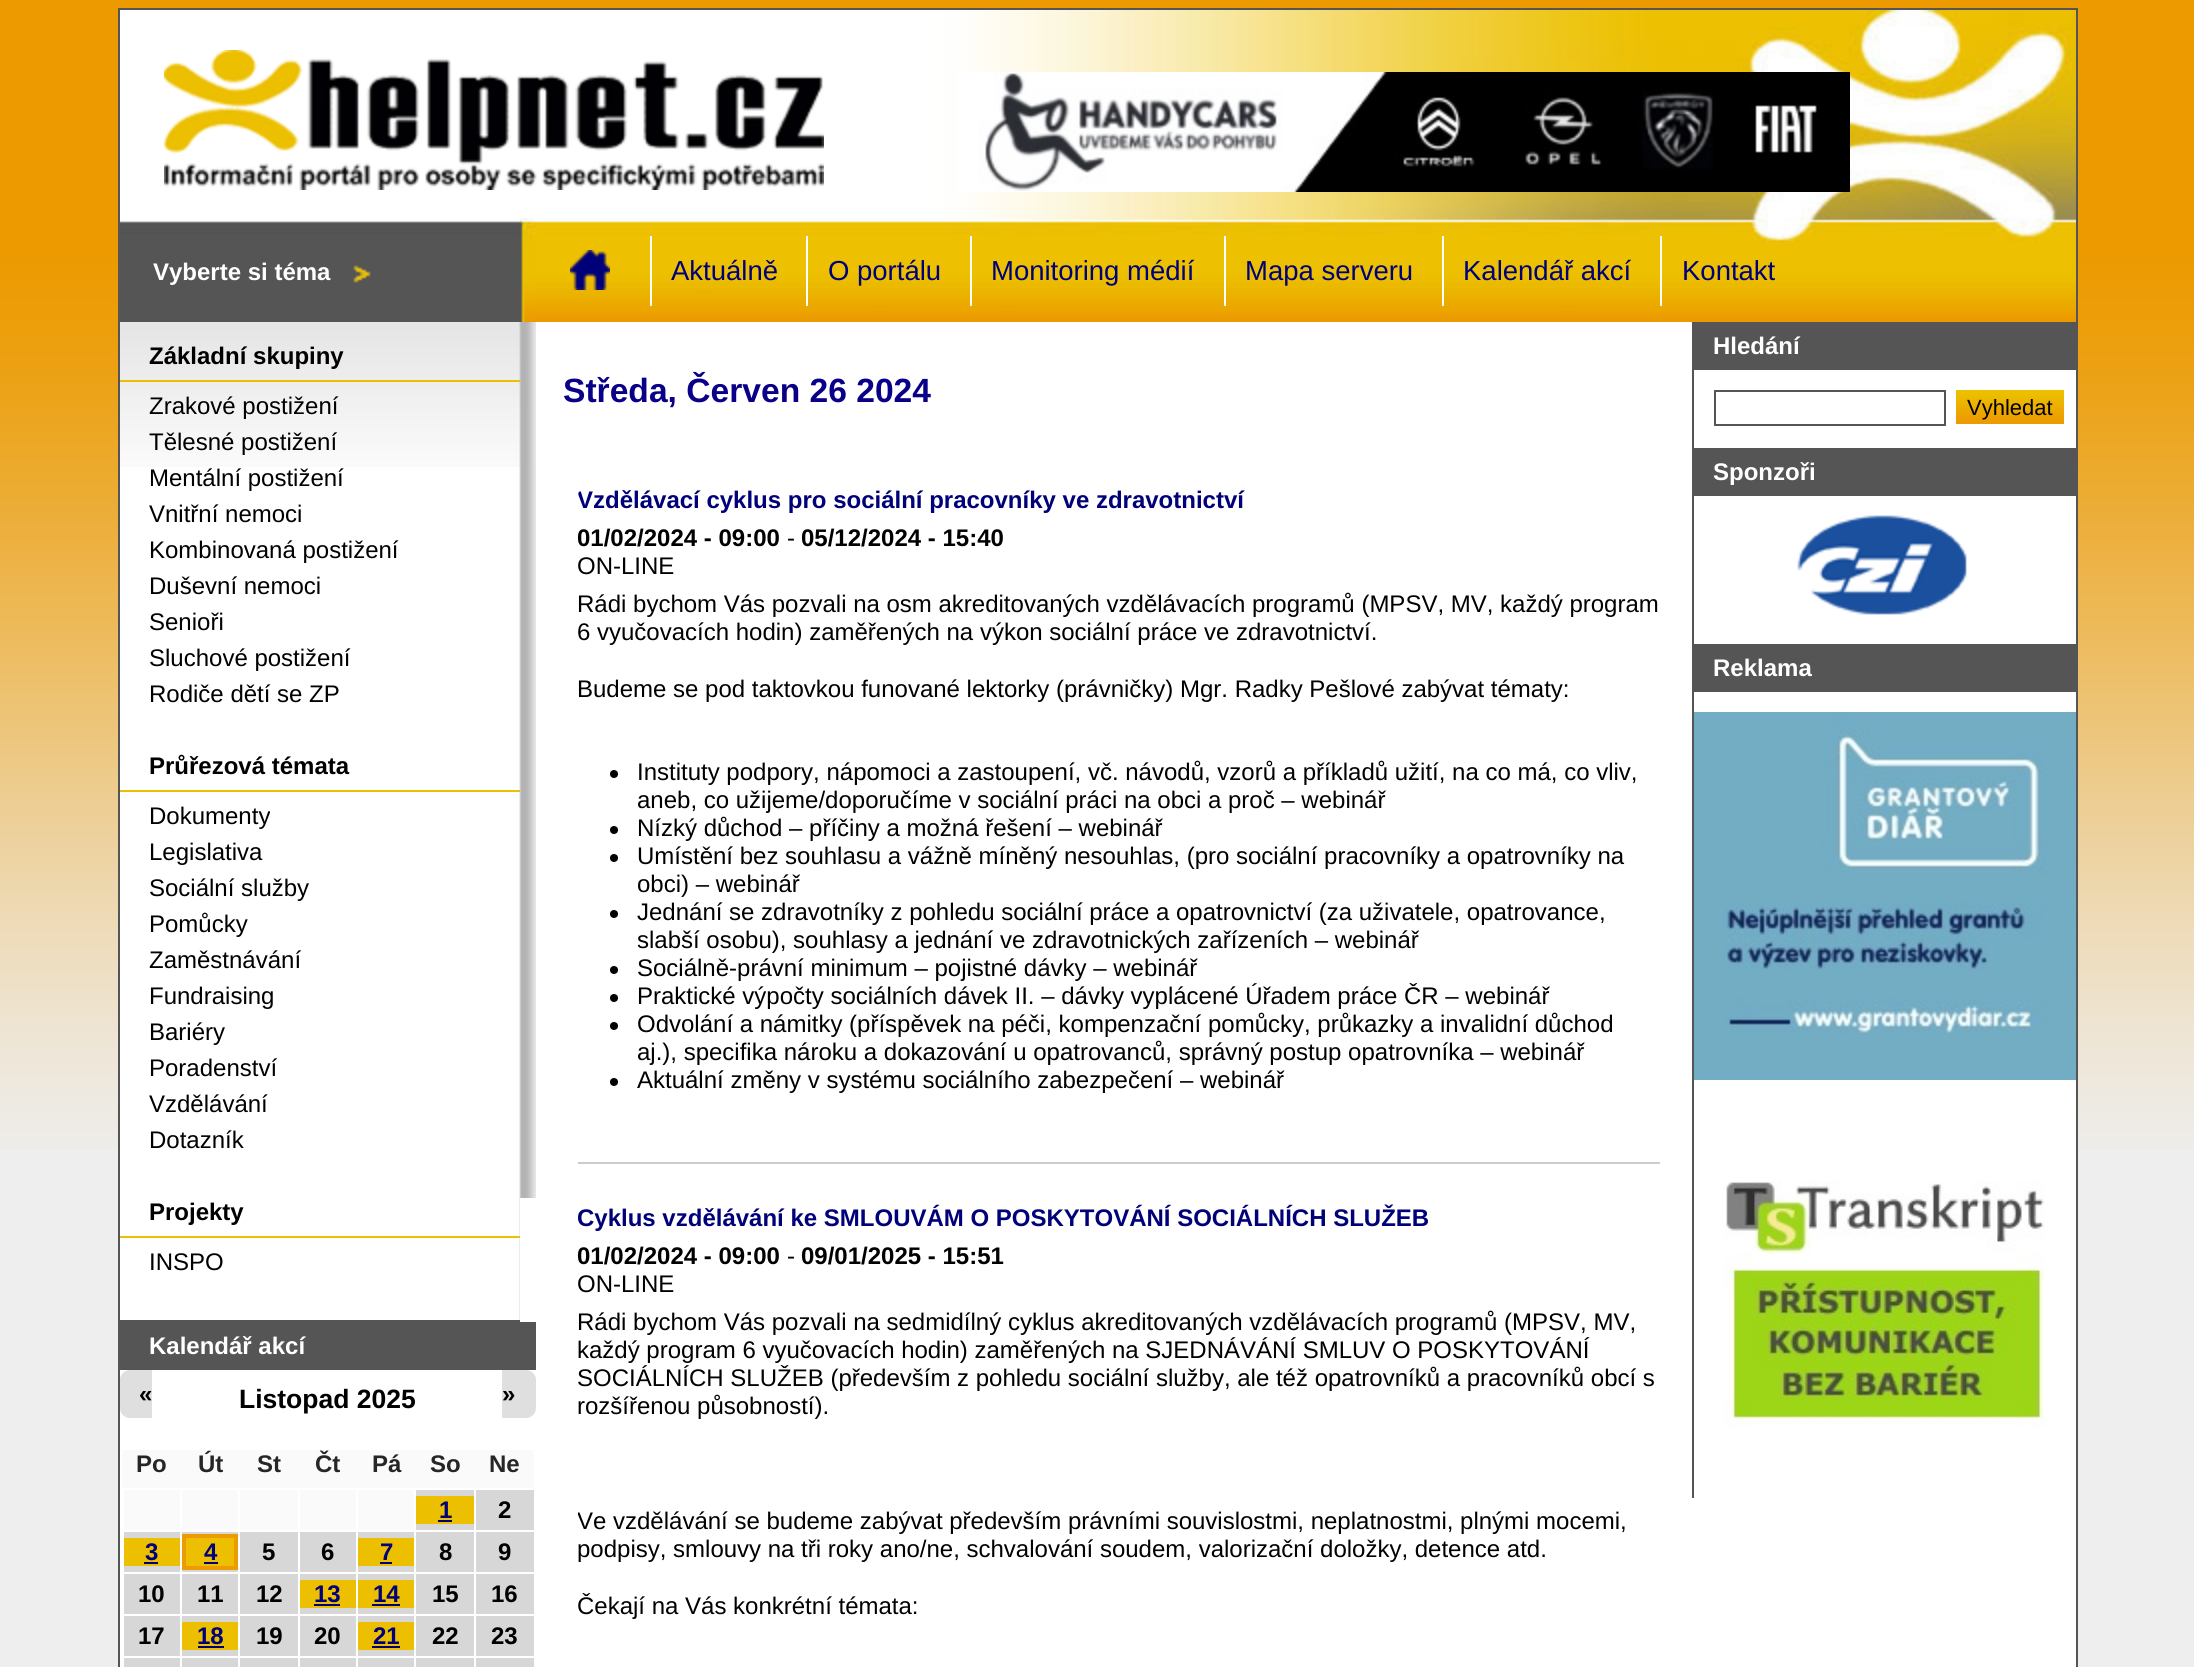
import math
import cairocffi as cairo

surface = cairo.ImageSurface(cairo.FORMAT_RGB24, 2194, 1667)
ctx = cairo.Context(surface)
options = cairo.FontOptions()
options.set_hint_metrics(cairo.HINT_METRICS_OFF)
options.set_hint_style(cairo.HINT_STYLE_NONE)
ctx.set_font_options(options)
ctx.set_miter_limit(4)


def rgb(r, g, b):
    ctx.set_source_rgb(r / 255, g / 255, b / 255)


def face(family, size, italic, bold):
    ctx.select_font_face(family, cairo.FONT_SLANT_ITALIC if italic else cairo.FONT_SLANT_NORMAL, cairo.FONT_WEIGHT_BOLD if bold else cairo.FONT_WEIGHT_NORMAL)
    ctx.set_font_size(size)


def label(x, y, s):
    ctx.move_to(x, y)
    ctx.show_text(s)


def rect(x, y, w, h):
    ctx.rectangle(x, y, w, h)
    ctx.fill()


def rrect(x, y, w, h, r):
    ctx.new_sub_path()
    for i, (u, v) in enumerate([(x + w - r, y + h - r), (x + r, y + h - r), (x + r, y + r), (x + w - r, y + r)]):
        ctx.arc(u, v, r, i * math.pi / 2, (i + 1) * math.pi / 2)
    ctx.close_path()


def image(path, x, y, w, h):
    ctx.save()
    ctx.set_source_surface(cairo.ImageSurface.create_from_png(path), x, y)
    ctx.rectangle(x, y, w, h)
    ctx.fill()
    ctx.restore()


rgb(238, 238, 238)
ctx.paint()
image('image0.png', 0, 0, 2194, 1150)
rgb(255, 255, 255)
rect(120, 322, 1956, 1345)
ctx.rectangle(119, 9, 1958, 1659)
rgb(85, 85, 85)
ctx.stroke()
image('image1.png', 120, 10, 1956, 232)
image('image2.png', 164, 50, 660, 140)
image('image3.png', 958, 72, 892, 120)
image('image4.png', 120, 242, 416, 80)
image('image5.png', 353, 265, 18, 18)
face('Liberation Sans', 24, 0, 1)
rgb(255, 255, 255)
label(153, 280, 'Vyberte si téma')
image('image6.png', 536, 242, 1540, 80)
image('image7.png', 570, 250, 40, 40)
face('Liberation Sans', 27.5, 0, 0)
rgb(0, 0, 121)
label(671, 280, 'Aktuálně')
rgb(255, 255, 255)
rect(650, 236, 2, 70)
rgb(0, 0, 121)
label(828, 280, 'O portálu')
rgb(255, 255, 255)
rect(806, 236, 2, 70)
rgb(0, 0, 121)
label(991, 280, 'Monitoring médií')
rgb(255, 255, 255)
rect(970, 236, 2, 70)
rgb(0, 0, 121)
label(1245, 280, 'Mapa serveru')
rgb(255, 255, 255)
rect(1224, 236, 2, 70)
rgb(0, 0, 121)
label(1463, 280, 'Kalendář akcí')
rgb(255, 255, 255)
rect(1442, 236, 2, 70)
rgb(0, 0, 121)
label(1682, 280, 'Kontakt')
rgb(255, 255, 255)
rect(1660, 236, 2, 70)
image('image8.png', 519, 322, 17, 430)
image('image9.png', 120, 322, 409, 145)
rgb(236, 192, 0)
rect(120, 380, 400, 2)
face('Liberation Sans', 24, 0, 1)
rgb(0, 0, 0)
label(149, 364, 'Základní skupiny')
face('Liberation Sans', 24, 0, 0)
label(149, 414, 'Zrakové postižení')
label(149, 450, 'Tělesné postižení')
label(149, 486, 'Mentální postižení')
label(149, 522, 'Vnitřní nemoci')
label(149, 558, 'Kombinovaná postižení')
label(149, 594, 'Duševní nemoci')
label(149, 630, 'Senioři')
label(149, 666, 'Sluchové postižení')
label(149, 702, 'Rodiče dětí se ZP')
image('image10.png', 519, 752, 17, 446)
rgb(236, 192, 0)
rect(120, 790, 400, 2)
face('Liberation Sans', 24, 0, 1)
rgb(0, 0, 0)
label(149, 774, 'Průřezová témata')
face('Liberation Sans', 24, 0, 0)
label(149, 824, 'Dokumenty')
label(149, 860, 'Legislativa')
label(149, 896, 'Sociální služby')
label(149, 932, 'Pomůcky')
label(149, 968, 'Zaměstnávání')
label(149, 1004, 'Fundraising')
label(149, 1040, 'Bariéry')
label(149, 1076, 'Poradenství')
label(149, 1112, 'Vzdělávání')
label(149, 1148, 'Dotazník')
rgb(236, 236, 236)
rect(519, 1198, 1, 124)
rgb(85, 85, 85)
rect(120, 1320, 400, 2)
rgb(236, 192, 0)
rect(120, 1236, 400, 2)
face('Liberation Sans', 24, 0, 1)
rgb(0, 0, 0)
label(149, 1220, 'Projekty')
face('Liberation Sans', 24, 0, 0)
label(149, 1270, 'INSPO')
rgb(85, 85, 85)
rect(120, 1322, 416, 48)
face('Liberation Sans', 24, 0, 1)
rgb(255, 255, 255)
label(149, 1354, 'Kalendář akcí')
face('Liberation Sans', 26.5, 0, 1)
rgb(0, 0, 0)
label(239, 1408, 'Listopad 2025')
rgb(223, 223, 223)
ctx.new_path()
ctx.move_to(130, 1370)
ctx.line_to(152, 1370)
ctx.line_to(152, 1418)
ctx.line_to(130, 1418)
ctx.curve_to(124.5, 1418, 120, 1413.5, 120, 1408)
ctx.line_to(120, 1380)
ctx.curve_to(120, 1374.5, 124.5, 1370, 130, 1370)
ctx.close_path()
ctx.fill()
face('Liberation Sans', 24, 0, 1)
rgb(0, 0, 0)
label(139, 1402, '«')
rgb(223, 223, 223)
ctx.new_path()
ctx.move_to(502, 1370)
ctx.line_to(526, 1370)
ctx.curve_to(531.5, 1370, 536, 1374.5, 536, 1380)
ctx.line_to(536, 1408)
ctx.curve_to(536, 1413.5, 531.5, 1418, 526, 1418)
ctx.line_to(502, 1418)
ctx.close_path()
ctx.fill()
rgb(0, 0, 0)
label(502, 1402, '»')
rgb(250, 250, 250)
rect(122, 1450, 412, 38)
rgb(38, 38, 38)
label(136, 1472, 'Po')
label(198, 1472, 'Út')
label(257, 1472, 'St')
label(315, 1472, 'Čt')
label(372, 1472, 'Pá')
label(430, 1472, 'So')
label(489, 1472, 'Ne')
rgb(250, 250, 250)
rect(124, 1490, 56, 40)
rect(182, 1490, 56, 40)
rect(240, 1490, 58, 40)
rect(300, 1490, 56, 40)
rect(358, 1490, 56, 40)
rgb(216, 215, 215)
rect(416, 1490, 58, 40)
rgb(236, 192, 0)
rect(416, 1496, 58, 28)
rgb(0, 0, 121)
label(439, 1518, '1')
rect(438, 1520, 14, 2)
rgb(216, 215, 215)
rect(476, 1490, 58, 40)
rgb(0, 0, 0)
label(498, 1518, '2')
rgb(216, 215, 215)
rect(124, 1532, 56, 40)
rgb(236, 192, 0)
rect(124, 1538, 56, 28)
rgb(0, 0, 121)
label(145, 1560, '3')
rect(144, 1562, 14, 2)
rgb(216, 215, 215)
rect(182, 1532, 56, 40)
rgb(236, 192, 0)
ctx.rectangle(184, 1536, 52, 32)
ctx.fill_preserve()
rgb(236, 156, 0)
ctx.set_line_width(4)
ctx.stroke()
rgb(0, 0, 121)
label(204, 1560, '4')
rect(204, 1562, 14, 2)
rgb(216, 215, 215)
rect(240, 1532, 58, 40)
rgb(0, 0, 0)
label(262, 1560, '5')
rgb(216, 215, 215)
rect(300, 1532, 56, 40)
rgb(0, 0, 0)
label(321, 1560, '6')
rgb(216, 215, 215)
rect(358, 1532, 56, 40)
rgb(236, 192, 0)
rect(358, 1538, 56, 28)
rgb(0, 0, 121)
label(380, 1560, '7')
rect(380, 1562, 12, 2)
rgb(216, 215, 215)
rect(416, 1532, 58, 40)
rgb(0, 0, 0)
label(439, 1560, '8')
rgb(216, 215, 215)
rect(476, 1532, 58, 40)
rgb(0, 0, 0)
label(498, 1560, '9')
rgb(216, 215, 215)
rect(124, 1574, 56, 40)
rgb(0, 0, 0)
label(138, 1602, '10')
rgb(216, 215, 215)
rect(182, 1574, 56, 40)
rgb(0, 0, 0)
label(197, 1602, '11')
rgb(216, 215, 215)
rect(240, 1574, 58, 40)
rgb(0, 0, 0)
label(256, 1602, '12')
rgb(216, 215, 215)
rect(300, 1574, 56, 40)
rgb(236, 192, 0)
rect(300, 1580, 56, 28)
rgb(0, 0, 121)
label(314, 1602, '13')
rect(314, 1604, 26, 2)
rgb(216, 215, 215)
rect(358, 1574, 56, 40)
rgb(236, 192, 0)
rect(358, 1580, 56, 28)
rgb(0, 0, 121)
label(373, 1602, '14')
rect(372, 1604, 28, 2)
rgb(216, 215, 215)
rect(416, 1574, 58, 40)
rgb(0, 0, 0)
label(432, 1602, '15')
rgb(216, 215, 215)
rect(476, 1574, 58, 40)
rgb(0, 0, 0)
label(491, 1602, '16')
rgb(216, 215, 215)
rect(124, 1616, 56, 40)
rgb(0, 0, 0)
label(138, 1644, '17')
rgb(216, 215, 215)
rect(182, 1616, 56, 40)
rgb(236, 192, 0)
rect(182, 1622, 56, 28)
rgb(0, 0, 121)
label(197, 1644, '18')
rect(198, 1646, 26, 2)
rgb(216, 215, 215)
rect(240, 1616, 58, 40)
rgb(0, 0, 0)
label(256, 1644, '19')
rgb(216, 215, 215)
rect(300, 1616, 56, 40)
rgb(0, 0, 0)
label(314, 1644, '20')
rgb(216, 215, 215)
rect(358, 1616, 56, 40)
rgb(236, 192, 0)
rect(358, 1622, 56, 28)
rgb(0, 0, 121)
label(373, 1644, '21')
rect(372, 1646, 28, 2)
rgb(216, 215, 215)
rect(416, 1616, 58, 40)
rgb(0, 0, 0)
label(432, 1644, '22')
rgb(216, 215, 215)
rect(476, 1616, 58, 40)
rgb(0, 0, 0)
label(491, 1644, '23')
rgb(216, 215, 215)
rect(124, 1658, 56, 9)
rect(182, 1658, 56, 9)
rect(240, 1658, 58, 9)
rect(300, 1658, 56, 9)
rect(358, 1658, 56, 9)
rect(416, 1658, 58, 9)
rect(476, 1658, 58, 9)
rgb(85, 85, 85)
rect(1692, 322, 2, 1176)
rect(1694, 322, 382, 48)
rgb(255, 255, 255)
label(1713, 354, 'Hledání')
ctx.rectangle(1715, 391, 230, 34)
rgb(85, 85, 85)
ctx.set_line_width(2)
ctx.stroke()
image('image11.png', 1956, 390, 108, 34)
face('Liberation Sans', 22, 0, 0)
rgb(0, 0, 0)
label(1967, 415, 'Vyhledat')
rgb(85, 85, 85)
rect(1694, 448, 382, 48)
face('Liberation Sans', 24, 0, 1)
rgb(255, 255, 255)
label(1713, 480, 'Sponzoři')
image('image12.png', 1797, 515, 170, 100)
rgb(85, 85, 85)
rect(1694, 644, 382, 48)
rgb(255, 255, 255)
label(1713, 676, 'Reklama')
image('image13.png', 1694, 712, 382, 368)
image('image14.png', 1723, 1181, 322, 247)
face('Liberation Sans', 33.6, 0, 1)
rgb(9, 0, 135)
label(563, 402, 'Středa, Červen 26 2024')
rgb(204, 204, 204)
rect(578, 1162, 1082, 2)
ctx.save()
rrect(578, 486, 1082, 672, 10)
ctx.clip()
face('Liberation Sans', 24, 0, 1)
rgb(0, 0, 121)
label(577, 508, 'Vzdělávací cyklus pro sociální pracovníky ve zdravotnictví')
ctx.restore()
face('Liberation Sans', 24, 0, 1)
rgb(0, 0, 0)
label(577, 546, '01/02/2024 - 09:00')
face('Liberation Sans', 24, 0, 0)
label(787, 546, '-')
face('Liberation Sans', 24, 0, 1)
label(801, 546, '05/12/2024 - 15:40')
face('Liberation Sans', 24, 0, 0)
label(577, 574, 'ON-LINE')
label(577, 612, 'Rádi bychom Vás pozvali na osm akreditovaných vzdělávacích programů (MPSV, MV, každý program')
label(577, 640, '6 vyučovacích hodin) zaměřených na výkon sociální práce ve zdravotnictví.')
label(577, 697, 'Budeme se pod taktovkou funované lektorky (právničky) Mgr. Radky Pešlové zabývat tématy:')
ctx.new_path()
ctx.arc(614, 774, 4, 0, 2 * math.pi)
ctx.fill()
label(637, 780, 'Instituty podpory, nápomoci a zastoupení, vč. návodů, vzorů a příkladů užití, na co má, co vliv,')
label(637, 808, 'aneb, co užijeme/doporučíme v sociální práci na obci a proč – webinář')
ctx.new_path()
ctx.arc(614, 830, 4, 0, 2 * math.pi)
ctx.fill()
label(637, 836, 'Nízký důchod – příčiny a možná řešení – webinář')
ctx.new_path()
ctx.arc(614, 858, 4, 0, 2 * math.pi)
ctx.fill()
label(637, 864, 'Umístění bez souhlasu a vážně míněný nesouhlas, (pro sociální pracovníky a opatrovníky na')
label(637, 892, 'obci) – webinář')
ctx.new_path()
ctx.arc(614, 914, 4, 0, 2 * math.pi)
ctx.fill()
label(637, 920, 'Jednání se zdravotníky z pohledu sociální práce a opatrovnictví (za uživatele, opatrovance,')
label(637, 948, 'slabší osobu), souhlasy a jednání ve zdravotnických zařízeních – webinář')
ctx.new_path()
ctx.arc(614, 970, 4, 0, 2 * math.pi)
ctx.fill()
label(637, 976, 'Sociálně-právní minimum – pojistné dávky – webinář')
ctx.new_path()
ctx.arc(614, 998, 4, 0, 2 * math.pi)
ctx.fill()
label(637, 1004, 'Praktické výpočty sociálních dávek II. – dávky vyplácené Úřadem práce ČR – webinář')
ctx.new_path()
ctx.arc(614, 1026, 4, 0, 2 * math.pi)
ctx.fill()
label(637, 1032, 'Odvolání a námitky (příspěvek na péči, kompenzační pomůcky, průkazky a invalidní důchod')
label(637, 1060, 'aj.), specifika nároku a dokazování u opatrovanců, správný postup opatrovníka – webinář')
ctx.new_path()
ctx.arc(614, 1082, 4, 0, 2 * math.pi)
ctx.fill()
label(637, 1088, 'Aktuální změny v systému sociálního zabezpečení – webinář')
face('Liberation Sans', 24, 0, 1)
rgb(0, 0, 121)
label(577, 1226, 'Cyklus vzdělávání ke SMLOUVÁM O POSKYTOVÁNÍ SOCIÁLNÍCH SLUŽEB')
rgb(0, 0, 0)
label(577, 1264, '01/02/2024 - 09:00')
face('Liberation Sans', 24, 0, 0)
label(787, 1264, '-')
face('Liberation Sans', 24, 0, 1)
label(801, 1264, '09/01/2025 - 15:51')
face('Liberation Sans', 24, 0, 0)
label(577, 1292, 'ON-LINE')
label(577, 1330, 'Rádi bychom Vás pozvali na sedmidílný cyklus akreditovaných vzdělávacích programů (MPSV, MV,')
label(577, 1358, 'každý program 6 vyučovacích hodin) zaměřených na SJEDNÁVÁNÍ SMLUV O POSKYTOVÁNÍ')
label(577, 1386, 'SOCIÁLNÍCH SLUŽEB (především z pohledu sociální služby, ale též opatrovníků a pracovníků obcí s')
label(577, 1414, 'rozšířenou působností).')
ctx.save()
rrect(578, 1204, 1082, 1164, 10)
ctx.clip()
label(577, 1529, 'Ve vzdělávání se budeme zabývat především právními souvislostmi, neplatnostmi, plnými mocemi,')
ctx.restore()
label(577, 1557, 'podpisy, smlouvy na tři roky ano/ne, schvalování soudem, valorizační doložky, detence atd.')
label(577, 1614, 'Čekají na Vás konkrétní témata:')
surface.write_to_png('render.png')
